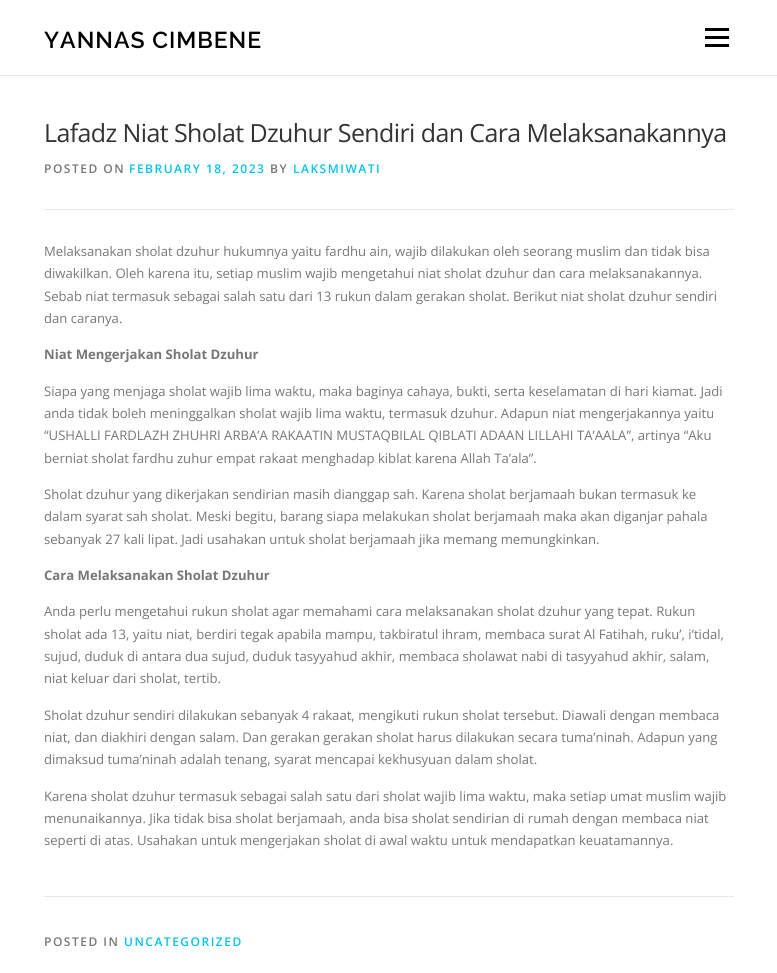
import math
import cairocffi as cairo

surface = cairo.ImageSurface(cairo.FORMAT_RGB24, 777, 973)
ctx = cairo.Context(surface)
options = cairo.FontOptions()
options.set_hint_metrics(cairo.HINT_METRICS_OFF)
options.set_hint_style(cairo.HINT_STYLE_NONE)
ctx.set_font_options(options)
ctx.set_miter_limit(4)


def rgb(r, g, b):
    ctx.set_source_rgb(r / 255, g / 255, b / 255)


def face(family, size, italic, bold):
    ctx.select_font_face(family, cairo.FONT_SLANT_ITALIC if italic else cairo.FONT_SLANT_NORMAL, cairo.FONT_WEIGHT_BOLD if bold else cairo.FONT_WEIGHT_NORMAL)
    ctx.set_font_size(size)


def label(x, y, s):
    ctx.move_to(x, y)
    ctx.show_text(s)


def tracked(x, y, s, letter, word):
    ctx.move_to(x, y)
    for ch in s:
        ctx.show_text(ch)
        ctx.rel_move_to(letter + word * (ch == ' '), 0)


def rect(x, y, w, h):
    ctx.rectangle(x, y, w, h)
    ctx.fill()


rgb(255, 255, 255)
ctx.paint()
face('Raleway SemiBold', 23, 0, 0)
rgb(0, 0, 0)
tracked(44, 48, 'YANNAS CIMBENE', 1, 0)
rect(705, 36, 24, 3)
rect(705, 28, 24, 3)
rect(705, 44, 24, 3)
rgb(233, 233, 233)
rect(0, 75, 777, 1)
face('Open Sans', 25, 0, 0)
rgb(51, 51, 51)
tracked(44, 142, 'Lafadz Niat Sholat Dzuhur Sendiri dan Cara Melaksanakannya', -0.6, 0)
rgb(233, 233, 233)
rect(44, 209, 690, 1)
face('Open Sans SemiBold', 12, 0, 0)
rgb(119, 119, 119)
tracked(44, 173, 'POSTED ON', 1.5, 0)
rgb(3, 196, 235)
tracked(129, 173, 'FEBRUARY 18, 2023', 1.5, 0)
rgb(119, 119, 119)
tracked(270, 173, 'BY', 1.5, 0)
rgb(3, 196, 235)
tracked(293, 173, 'LAKSMIWATI', 1.5, 0)
face('Open Sans', 13.12, 0, 0)
rgb(119, 119, 119)
label(44, 256, 'Melaksanakan sholat dzuhur hukumnya yaitu fardhu ain, wajib dilakukan oleh seorang muslim dan tidak bisa')
label(44, 278, 'diwakilkan. Oleh karena itu, setiap muslim wajib mengetahui niat sholat dzuhur dan cara melaksanakannya.')
label(44, 301, 'Sebab niat termasuk sebagai salah satu dari 13 rukun dalam gerakan sholat. Berikut niat sholat dzuhur sendiri')
label(44, 323, 'dan caranya.')
face('Open Sans', 13.12, 0, 1)
label(44, 359, 'Niat Mengerjakan Sholat Dzuhur')
face('Open Sans', 13.12, 0, 0)
label(44, 396, 'Siapa yang menjaga sholat wajib lima waktu, maka baginya cahaya, bukti, serta keselamatan di hari kiamat. Jadi')
label(44, 418, 'anda tidak boleh meninggalkan sholat wajib lima waktu, termasuk dzuhur. Adapun niat mengerjakannya yaitu')
label(44, 440, '“USHALLI FARDLAZH ZHUHRI ARBA’A RAKAATIN MUSTAQBILAL QIBLATI ADAAN LILLAHI TA’AALA”, artinya “Aku')
label(44, 463, 'berniat sholat fardhu zuhur empat rakaat menghadap kiblat karena Allah Ta’ala”.')
label(44, 499, 'Sholat dzuhur yang dikerjakan sendirian masih dianggap sah. Karena sholat berjamaah bukan termasuk ke')
label(44, 521, 'dalam syarat sah sholat. Meski begitu, barang siapa melakukan sholat berjamaah maka akan diganjar pahala')
label(44, 544, 'sebanyak 27 kali lipat. Jadi usahakan untuk sholat berjamaah jika memang memungkinkan.')
face('Open Sans', 13.12, 0, 1)
label(44, 580, 'Cara Melaksanakan Sholat Dzuhur')
face('Open Sans', 13.12, 0, 0)
label(44, 616, 'Anda perlu mengetahui rukun sholat agar memahami cara melaksanakan sholat dzuhur yang tepat. Rukun')
label(44, 639, 'sholat ada 13, yaitu niat, berdiri tegak apabila mampu, takbiratul ihram, membaca surat Al Fatihah, ruku’, i’tidal,')
label(44, 661, 'sujud, duduk di antara dua sujud, duduk tasyyahud akhir, membaca sholawat nabi di tasyyahud akhir, salam,')
label(44, 683, 'niat keluar dari sholat, tertib.')
label(44, 720, 'Sholat dzuhur sendiri dilakukan sebanyak 4 rakaat, mengikuti rukun sholat tersebut. Diawali dengan membaca')
label(44, 742, 'niat, dan diakhiri dengan salam. Dan gerakan gerakan sholat harus dilakukan secara tuma’ninah. Adapun yang')
label(44, 764, 'dimaksud tuma’ninah adalah tenang, syarat mencapai kekhusyuan dalam sholat.')
label(44, 801, 'Karena sholat dzuhur termasuk sebagai salah satu dari sholat wajib lima waktu, maka setiap umat muslim wajib')
label(44, 823, 'menunaikannya. Jika tidak bisa sholat berjamaah, anda bisa sholat sendirian di rumah dengan membaca niat')
label(44, 845, 'seperti di atas. Usahakan untuk mengerjakan sholat di awal waktu untuk mendapatkan keuatamannya.')
rgb(233, 233, 233)
rect(44, 896, 690, 1)
face('Open Sans SemiBold', 12, 0, 0)
rgb(119, 119, 119)
tracked(44, 946, 'POSTED IN', 1.5, 0)
rgb(3, 196, 235)
tracked(124, 946, 'UNCATEGORIZED', 1.5, 0)
surface.write_to_png('render.png')
